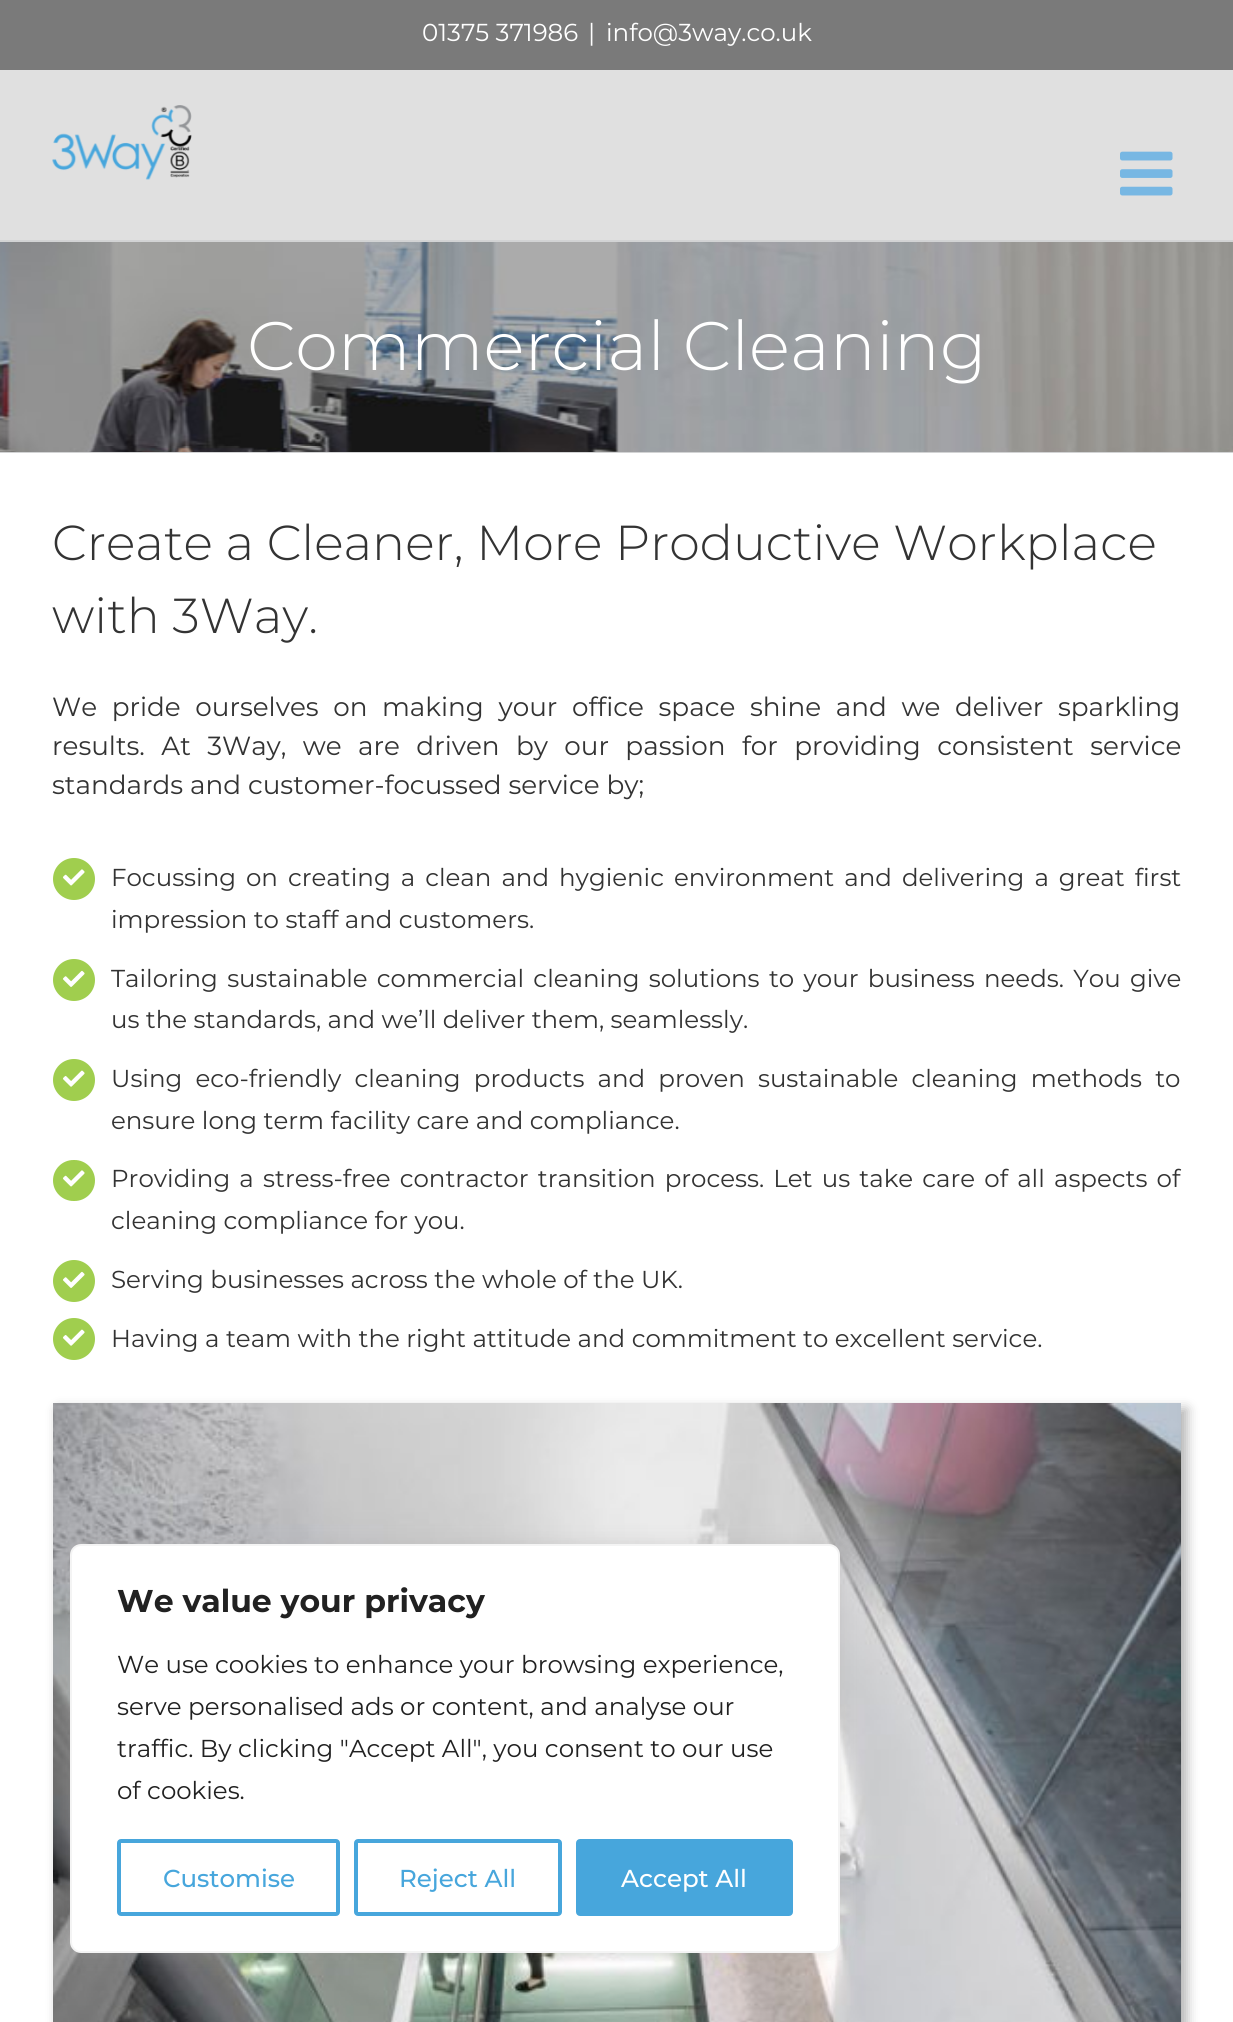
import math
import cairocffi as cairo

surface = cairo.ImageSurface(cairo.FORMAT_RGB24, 1233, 2022)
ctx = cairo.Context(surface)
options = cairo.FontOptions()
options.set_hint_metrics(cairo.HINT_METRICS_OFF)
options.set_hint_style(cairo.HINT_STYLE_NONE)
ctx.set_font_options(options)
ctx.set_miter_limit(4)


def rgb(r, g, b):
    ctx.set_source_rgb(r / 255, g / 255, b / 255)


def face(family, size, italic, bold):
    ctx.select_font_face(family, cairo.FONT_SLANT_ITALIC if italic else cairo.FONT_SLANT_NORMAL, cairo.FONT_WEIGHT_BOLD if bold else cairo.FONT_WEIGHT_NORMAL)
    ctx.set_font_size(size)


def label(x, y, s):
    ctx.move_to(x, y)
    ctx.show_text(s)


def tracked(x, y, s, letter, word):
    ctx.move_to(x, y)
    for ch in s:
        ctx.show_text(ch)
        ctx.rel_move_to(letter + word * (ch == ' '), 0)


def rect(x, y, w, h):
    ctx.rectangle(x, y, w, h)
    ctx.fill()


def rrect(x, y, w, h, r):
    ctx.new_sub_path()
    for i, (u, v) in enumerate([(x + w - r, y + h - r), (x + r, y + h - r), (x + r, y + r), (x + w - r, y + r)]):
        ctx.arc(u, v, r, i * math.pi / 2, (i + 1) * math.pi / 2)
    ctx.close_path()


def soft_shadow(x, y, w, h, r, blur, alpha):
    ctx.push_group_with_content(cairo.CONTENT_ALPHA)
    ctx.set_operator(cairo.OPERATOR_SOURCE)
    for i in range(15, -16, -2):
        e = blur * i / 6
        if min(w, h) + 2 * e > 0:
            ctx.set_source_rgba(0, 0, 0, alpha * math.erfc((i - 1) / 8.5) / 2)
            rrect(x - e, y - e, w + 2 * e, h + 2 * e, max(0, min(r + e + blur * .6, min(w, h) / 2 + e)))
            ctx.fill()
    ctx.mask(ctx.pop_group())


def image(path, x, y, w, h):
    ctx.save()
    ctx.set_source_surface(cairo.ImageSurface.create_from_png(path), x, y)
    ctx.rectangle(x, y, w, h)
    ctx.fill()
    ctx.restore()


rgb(255, 255, 255)
ctx.paint()
rgb(122, 122, 122)
rect(0, 0, 1233, 70)
face('Montserrat', 24.5, 0, 0)
rgb(255, 255, 255)
label(422, 41, '01375 371986')
label(588, 41, '|')
label(606, 41, 'info@3way.co.uk')
rgb(224, 224, 224)
rect(0, 70, 1233, 170)
image('image0.png', 52, 105, 140, 75)
image('image1.png', 1120, 151, 53, 45)
image('image2.png', 0, 242, 1233, 210)
rgb(210, 211, 212)
rect(0, 240, 1233, 2)
rect(0, 452, 1233, 1)
face('Montserrat Light', 68.5, 0, 0)
rgb(255, 255, 255)
label(247, 370, 'Commercial Cleaning')
face('Montserrat Light', 49.1, 0, 0)
rgb(51, 51, 51)
label(52, 560, 'Create a Cleaner, More Productive Workplace')
label(52, 633, 'with 3Way.')
face('Montserrat', 26.25, 0, 0)
tracked(52, 716, 'We pride ourselves on making your office space shine and we deliver sparkling', 0, 7.75)
tracked(52, 755, 'results. At 3Way, we are driven by our passion for providing consistent service', 0, 9.5)
label(52, 794, 'standards and customer-focussed service by;')
rgb(160, 206, 78)
ctx.new_path()
ctx.arc(74, 879, 21, 0, 2 * math.pi)
ctx.fill()
image('image3.png', 63, 869, 22, 17)
face('Montserrat', 24.5, 0, 0)
rgb(51, 51, 51)
tracked(111, 886, 'Focussing on creating a clean and hygienic environment and delivering a great first', 0, 3.6)
label(111, 928, 'impression to staff and customers.')
rgb(160, 206, 78)
ctx.new_path()
ctx.arc(74, 980, 21, 0, 2 * math.pi)
ctx.fill()
image('image4.png', 63, 970, 22, 17)
rgb(51, 51, 51)
tracked(111, 987, 'Tailoring sustainable commercial cleaning solutions to your business needs. You give', 0, 2.9)
label(111, 1028, 'us the standards, and we’ll deliver them, seamlessly.')
rgb(160, 206, 78)
ctx.new_path()
ctx.arc(74, 1080, 21, 0, 2 * math.pi)
ctx.fill()
image('image5.png', 63, 1070, 22, 17)
rgb(51, 51, 51)
tracked(111, 1087, 'Using eco-friendly cleaning products and proven sustainable cleaning methods to', 0, 6.75)
label(111, 1129, 'ensure long term facility care and compliance.')
rgb(160, 206, 78)
rrect(53, 1160, 42, 41, 20.5)
ctx.fill()
image('image3.png', 63, 1170, 22, 17)
rgb(51, 51, 51)
tracked(111, 1187, 'Providing a stress-free contractor transition process. Let us take care of all aspects of', 0, 2.75)
label(111, 1229, 'cleaning compliance for you.')
rgb(160, 206, 78)
ctx.new_path()
ctx.arc(74, 1281, 21, 0, 2 * math.pi)
ctx.fill()
image('image4.png', 63, 1271, 22, 17)
rgb(51, 51, 51)
label(111, 1288, 'Serving businesses across the whole of the UK.')
rgb(160, 206, 78)
ctx.new_path()
ctx.arc(74, 1339, 21, 0, 2 * math.pi)
ctx.fill()
image('image5.png', 63, 1329, 22, 17)
rgb(51, 51, 51)
label(111, 1347, 'Having a team with the right attitude and commitment to excellent service.')
rgb(0, 0, 0)
soft_shadow(58, 1409, 1129, 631, 0, 6, 0.3)
image('image6.png', 53, 1403, 1128, 619)
rgb(172, 171, 171)
soft_shadow(70, 1542, 770, 409, 11, 9, 0.3)
rgb(255, 255, 255)
rrect(71, 1545, 768, 407, 10)
ctx.fill_preserve()
rgb(244, 244, 244)
ctx.stroke()
face('Montserrat', 31.5, 0, 1)
rgb(33, 33, 33)
label(117, 1612, 'We value your privacy')
face('Montserrat', 24.5, 0, 0)
label(117, 1673, 'We use cookies to enhance your browsing experience,')
label(117, 1715, 'serve personalised ads or content, and analyse our')
label(117, 1757, 'traffic. By clicking "Accept All", you consent to our use')
label(117, 1799, 'of cookies.')
rrect(119, 1841, 219, 73, 2)
rgb(71, 166, 220)
ctx.set_line_width(4)
ctx.stroke()
face('Montserrat Medium', 24.5, 0, 0)
label(163, 1887, 'Customise')
rrect(356, 1841, 204, 73, 2)
ctx.stroke()
label(399, 1887, 'Reject All')
rrect(578, 1841, 213, 73, 2)
ctx.fill_preserve()
ctx.stroke()
rgb(255, 255, 255)
label(621, 1887, 'Accept All')
surface.write_to_png('render.png')
